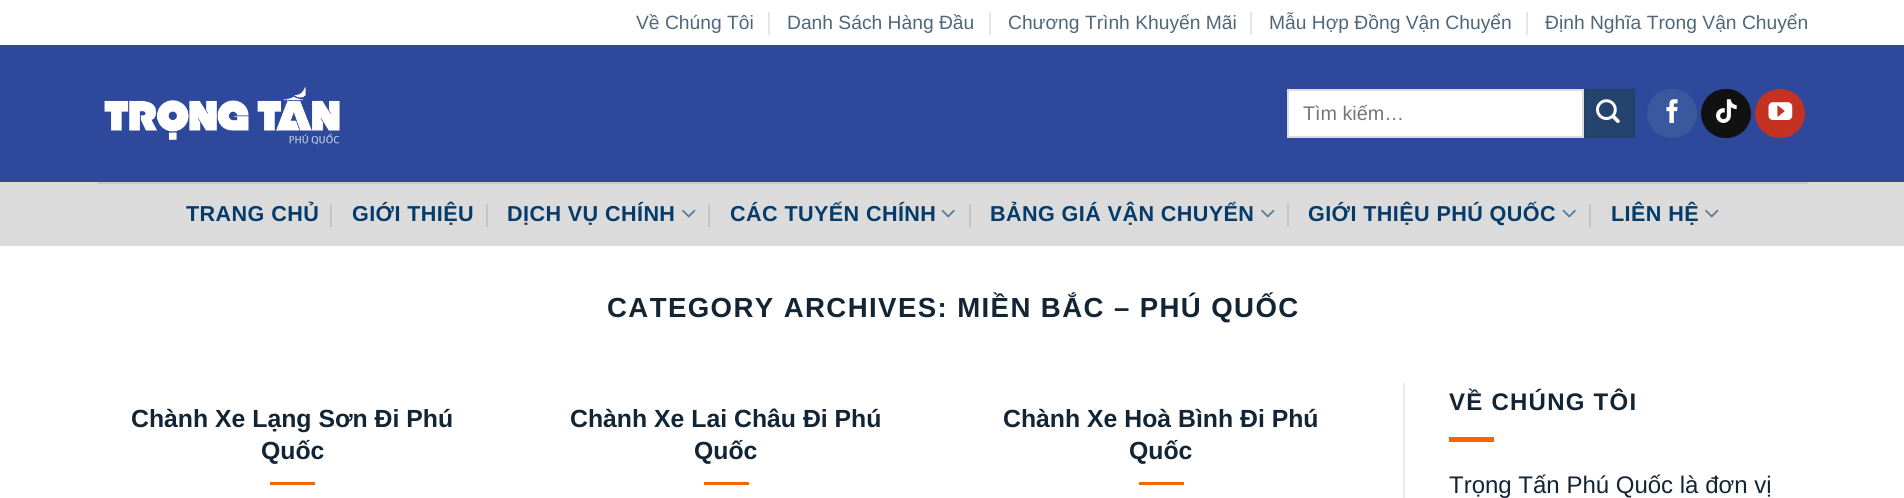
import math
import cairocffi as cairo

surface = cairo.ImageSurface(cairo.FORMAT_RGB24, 1904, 498)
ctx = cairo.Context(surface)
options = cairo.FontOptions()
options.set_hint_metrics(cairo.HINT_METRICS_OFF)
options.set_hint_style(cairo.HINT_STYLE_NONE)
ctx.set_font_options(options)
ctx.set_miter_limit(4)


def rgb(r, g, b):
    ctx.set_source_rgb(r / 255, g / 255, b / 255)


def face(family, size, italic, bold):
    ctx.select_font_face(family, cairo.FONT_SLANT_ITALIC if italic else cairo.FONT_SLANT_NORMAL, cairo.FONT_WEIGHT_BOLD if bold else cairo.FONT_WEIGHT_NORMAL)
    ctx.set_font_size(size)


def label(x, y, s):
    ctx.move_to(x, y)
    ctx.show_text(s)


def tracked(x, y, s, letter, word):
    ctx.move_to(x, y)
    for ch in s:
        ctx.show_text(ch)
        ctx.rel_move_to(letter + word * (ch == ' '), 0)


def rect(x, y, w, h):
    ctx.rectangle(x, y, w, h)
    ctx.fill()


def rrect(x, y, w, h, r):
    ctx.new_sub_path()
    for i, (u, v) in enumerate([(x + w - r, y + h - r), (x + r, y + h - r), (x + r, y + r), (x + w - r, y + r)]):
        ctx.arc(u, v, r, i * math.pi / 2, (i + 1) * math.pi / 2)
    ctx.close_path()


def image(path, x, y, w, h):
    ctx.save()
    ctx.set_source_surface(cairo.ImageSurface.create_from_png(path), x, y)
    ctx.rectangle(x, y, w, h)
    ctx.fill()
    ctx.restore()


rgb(255, 255, 255)
ctx.paint()
face('Liberation Sans', 19.25, 0, 0)
rgb(80, 103, 123)
label(636, 29, 'Về Chúng Tôi')
rgb(230, 230, 230)
rect(768, 12, 2, 23)
rgb(80, 103, 123)
label(787, 29, 'Danh Sách Hàng Đầu')
rgb(230, 230, 230)
rect(989, 12, 2, 23)
rgb(80, 103, 123)
label(1008, 29, 'Chương Trình Khuyến Mãi')
rgb(230, 230, 230)
rect(1250, 12, 2, 23)
rgb(80, 103, 123)
label(1269, 29, 'Mẫu Hợp Đồng Vận Chuyển')
rgb(230, 230, 230)
rect(1526, 12, 2, 23)
rgb(80, 103, 123)
label(1545, 29, 'Định Nghĩa Trong Vận Chuyển')
rgb(46, 73, 156)
rect(0, 45, 1904, 137)
image('image0.png', 104, 87, 236, 58)
rgb(255, 255, 255)
ctx.rectangle(1288, 90, 295, 47)
ctx.fill_preserve()
rgb(221, 221, 221)
ctx.stroke()
face('Liberation Sans', 19.75, 0, 0)
rgb(117, 117, 117)
label(1303, 120, 'Tìm kiếm…')
rgb(36, 68, 111)
ctx.rectangle(1585, 90, 49, 47)
ctx.fill_preserve()
rgb(34, 65, 105)
ctx.stroke()
image('image1.png', 1596, 99, 24, 24)
rgb(58, 88, 157)
rrect(1648, 90, 48, 47, 23.5)
ctx.fill_preserve()
ctx.stroke()
image('image2.png', 1666, 99, 12, 24)
rgb(17, 17, 17)
rrect(1702, 90, 48, 47, 23.5)
ctx.fill_preserve()
ctx.stroke()
image('image3.png', 1716, 99, 21, 24)
rgb(195, 50, 35)
rrect(1756, 90, 48, 47, 23.5)
ctx.fill_preserve()
ctx.stroke()
image('image4.png', 1768, 102, 25, 18)
rgb(219, 219, 219)
rect(0, 182, 1904, 64)
rgb(199, 200, 202)
rect(98, 182, 1710, 2)
face('Liberation Sans', 21.6, 0, 1)
rgb(4, 59, 107)
tracked(186, 221, 'TRANG CHỦ', 0.4, 0)
rgb(197, 197, 197)
rect(330, 204, 2, 23)
rgb(4, 59, 107)
tracked(352, 221, 'GIỚI THIỆU', 0.4, 0)
rgb(197, 197, 197)
rect(486, 204, 2, 23)
rgb(4, 59, 107)
tracked(507, 221, 'DỊCH VỤ CHÍNH', 0.4, 0)
image('image5.png', 682, 209, 14, 9)
rgb(197, 197, 197)
rect(708, 204, 2, 23)
rgb(4, 59, 107)
tracked(730, 221, 'CÁC TUYẾN CHÍNH', 0.4, 0)
image('image6.png', 941, 209, 14, 9)
rgb(197, 197, 197)
rect(969, 204, 2, 23)
rgb(4, 59, 107)
tracked(990, 221, 'BẢNG GIÁ VẬN CHUYỂN', 0.4, 0)
image('image5.png', 1261, 209, 14, 9)
rgb(197, 197, 197)
rect(1287, 204, 2, 23)
rgb(4, 59, 107)
tracked(1308, 221, 'GIỚI THIỆU PHÚ QUỐC', 0.4, 0)
image('image6.png', 1562, 209, 14, 9)
rgb(197, 197, 197)
rect(1589, 204, 2, 23)
rgb(4, 59, 107)
tracked(1611, 221, 'LIÊN HỆ', 0.4, 0)
image('image5.png', 1705, 209, 14, 9)
face('Liberation Sans', 27.6, 0, 1)
rgb(19, 36, 52)
tracked(607, 317, 'CATEGORY ARCHIVES: MIỀN BẮC – PHÚ QUỐC', 1.4, 0)
face('Liberation Sans', 24.8, 0, 1)
label(131, 427, 'Chành Xe Lạng Sơn Đi Phú')
label(261, 459, 'Quốc')
rgb(242, 104, 0)
rect(270, 482, 45, 3)
rgb(19, 36, 52)
label(570, 427, 'Chành Xe Lai Châu Đi Phú')
label(694, 459, 'Quốc')
rgb(242, 104, 0)
rect(704, 482, 45, 3)
rgb(19, 36, 52)
label(1003, 427, 'Chành Xe Hoà Bình Đi Phú')
label(1129, 459, 'Quốc')
rgb(242, 104, 0)
rect(1139, 482, 45, 3)
rgb(236, 236, 236)
rect(1403, 383, 2, 115)
face('Liberation Sans', 24, 0, 1)
rgb(19, 36, 52)
tracked(1449, 410, 'VỀ CHÚNG TÔI', 1.25, 0)
rgb(242, 104, 0)
rect(1449, 437, 45, 5)
face('Liberation Sans', 24, 0, 0)
rgb(19, 36, 52)
label(1449, 493, 'Trọng Tấn Phú Quốc là đơn vị')
surface.write_to_png('render.png')
